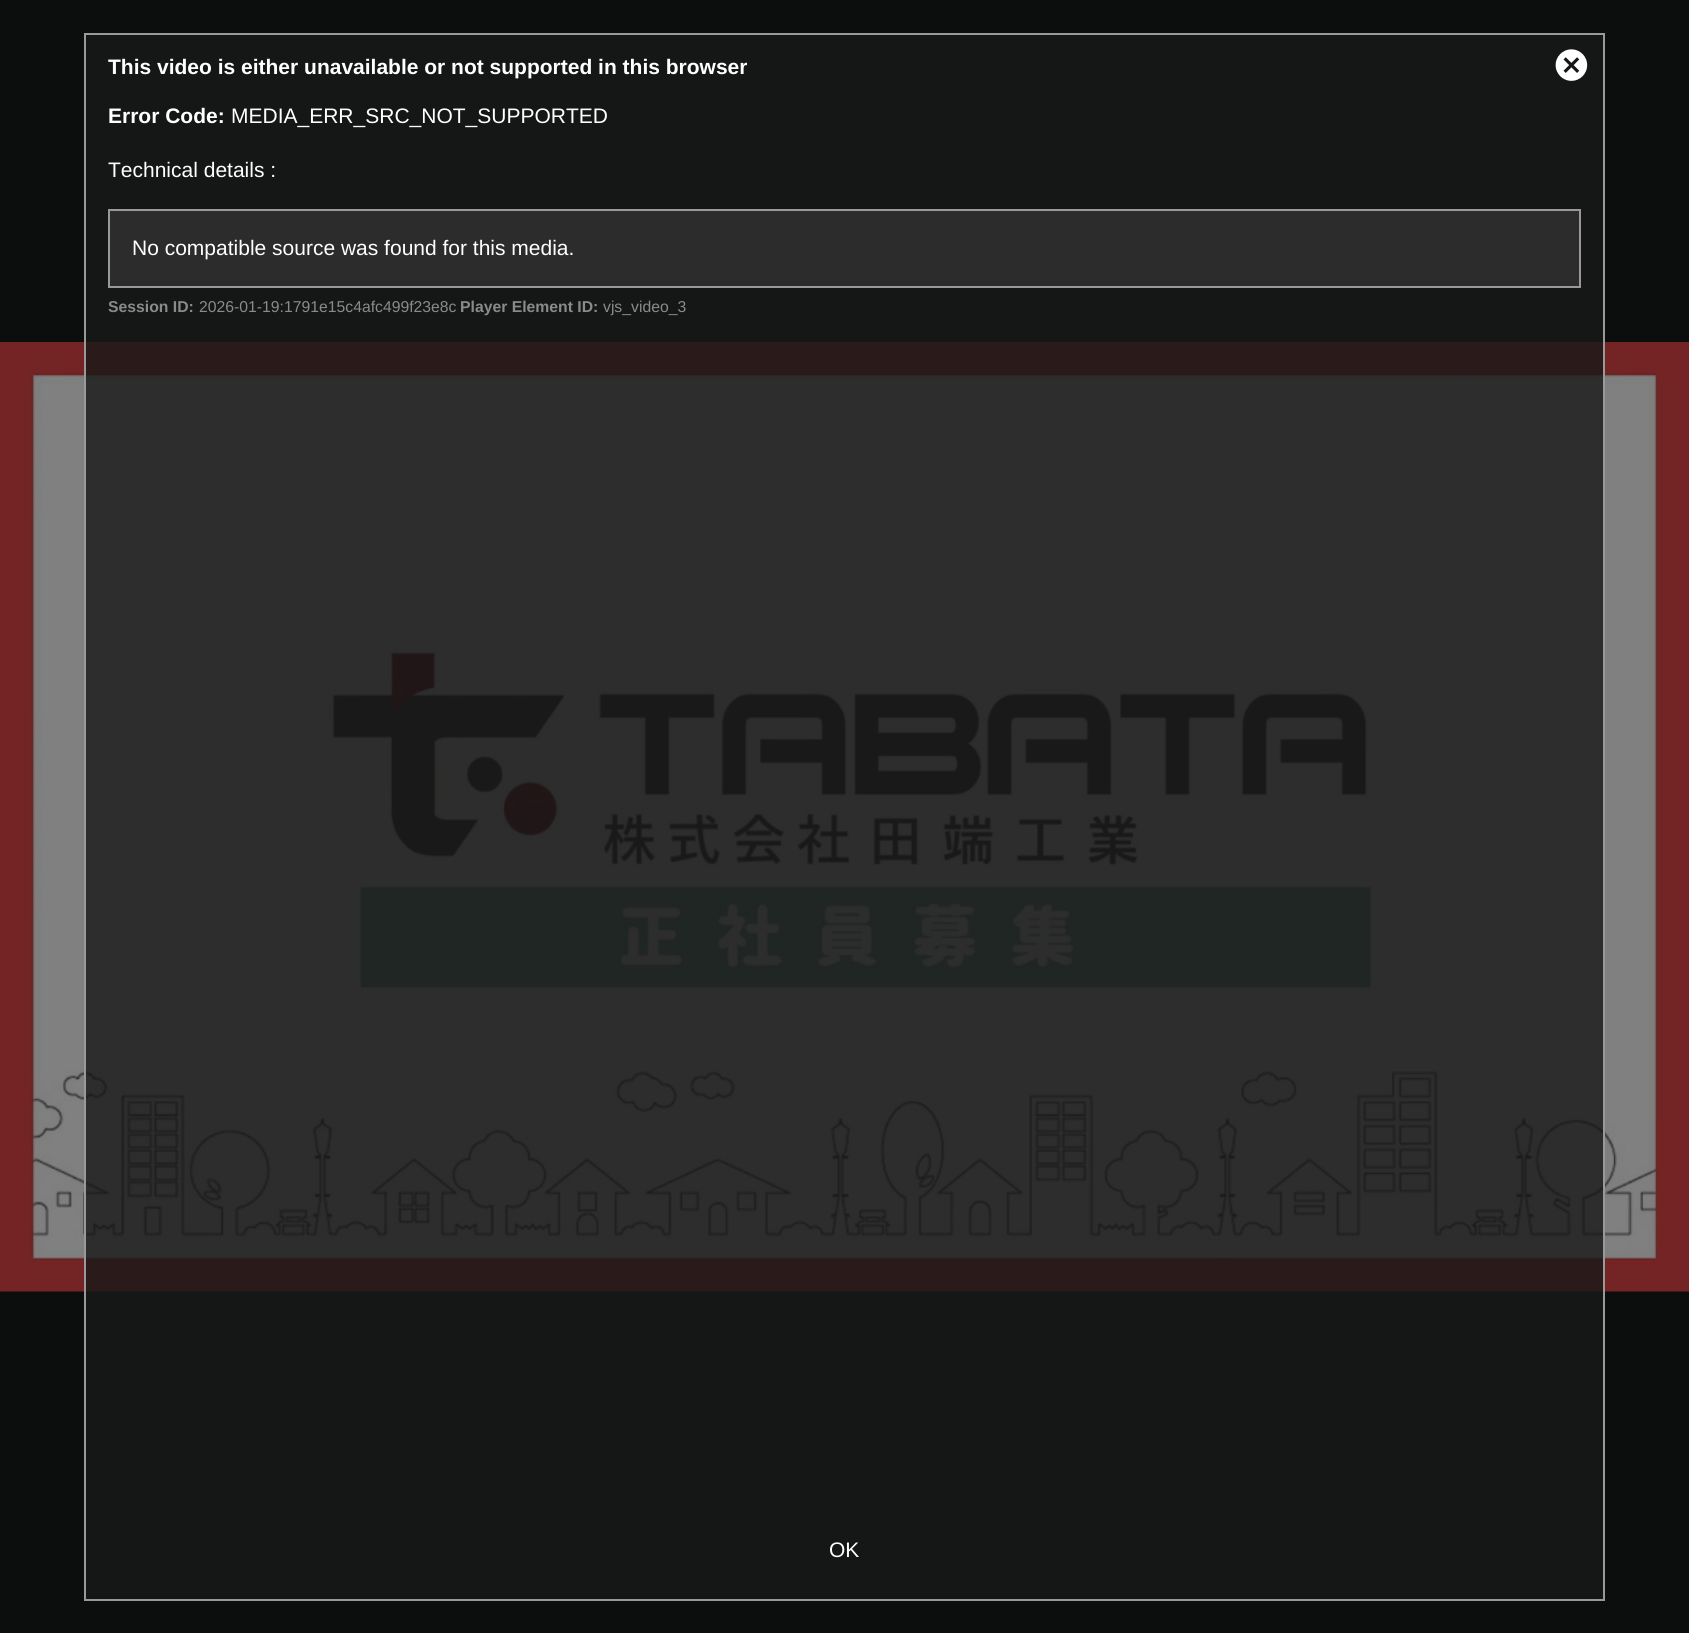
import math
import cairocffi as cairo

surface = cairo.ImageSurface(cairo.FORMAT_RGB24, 1689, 1633)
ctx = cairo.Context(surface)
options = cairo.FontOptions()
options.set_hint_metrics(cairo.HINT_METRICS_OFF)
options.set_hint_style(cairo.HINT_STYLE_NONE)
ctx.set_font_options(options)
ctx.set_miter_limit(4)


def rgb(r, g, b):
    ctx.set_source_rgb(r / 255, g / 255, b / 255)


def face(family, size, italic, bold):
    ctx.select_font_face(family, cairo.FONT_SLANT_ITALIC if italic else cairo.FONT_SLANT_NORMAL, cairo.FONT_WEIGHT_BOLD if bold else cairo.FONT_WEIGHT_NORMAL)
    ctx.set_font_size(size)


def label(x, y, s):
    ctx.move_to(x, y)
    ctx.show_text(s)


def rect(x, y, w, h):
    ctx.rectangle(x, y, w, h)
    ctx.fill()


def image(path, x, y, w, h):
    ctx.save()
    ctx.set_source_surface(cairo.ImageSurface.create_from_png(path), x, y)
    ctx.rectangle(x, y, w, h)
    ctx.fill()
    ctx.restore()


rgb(11, 14, 12)
ctx.paint()
rgb(21, 22, 22)
rect(86, 35, 1517, 1564)
image('image0.png', 0, 342, 1689, 950)
ctx.rectangle(85, 34, 1519, 1566)
rgb(153, 153, 153)
ctx.stroke()
face('Liberation Sans', 21, 0, 1)
rgb(255, 255, 255)
label(108, 74, 'This video is either unavailable or not supported in this browser')
label(108, 123, 'Error Code:')
face('Liberation Sans', 21, 0, 0)
label(231, 123, 'MEDIA_ERR_SRC_NOT_SUPPORTED')
label(108, 177, 'Technical details :')
rgb(44, 44, 44)
ctx.rectangle(109, 210, 1471, 77)
ctx.fill_preserve()
rgb(153, 153, 153)
ctx.stroke()
rgb(255, 255, 255)
label(132, 255, 'No compatible source was found for this media.')
face('Liberation Sans', 15.75, 0, 1)
rgb(138, 138, 138)
label(108, 312, 'Session ID:')
face('Liberation Sans', 15.75, 0, 0)
label(199, 312, '2026-01-19:1791e15c4afc499f23e8c')
face('Liberation Sans', 15.75, 0, 1)
label(460, 312, 'Player Element ID:')
face('Liberation Sans', 15.75, 0, 0)
label(603, 312, 'vjs_video_3')
image('image1.png', 1555, 49, 33, 32)
face('Liberation Sans', 21, 0, 0)
rgb(255, 255, 255)
label(829, 1557, 'OK')
surface.write_to_png('render.png')
